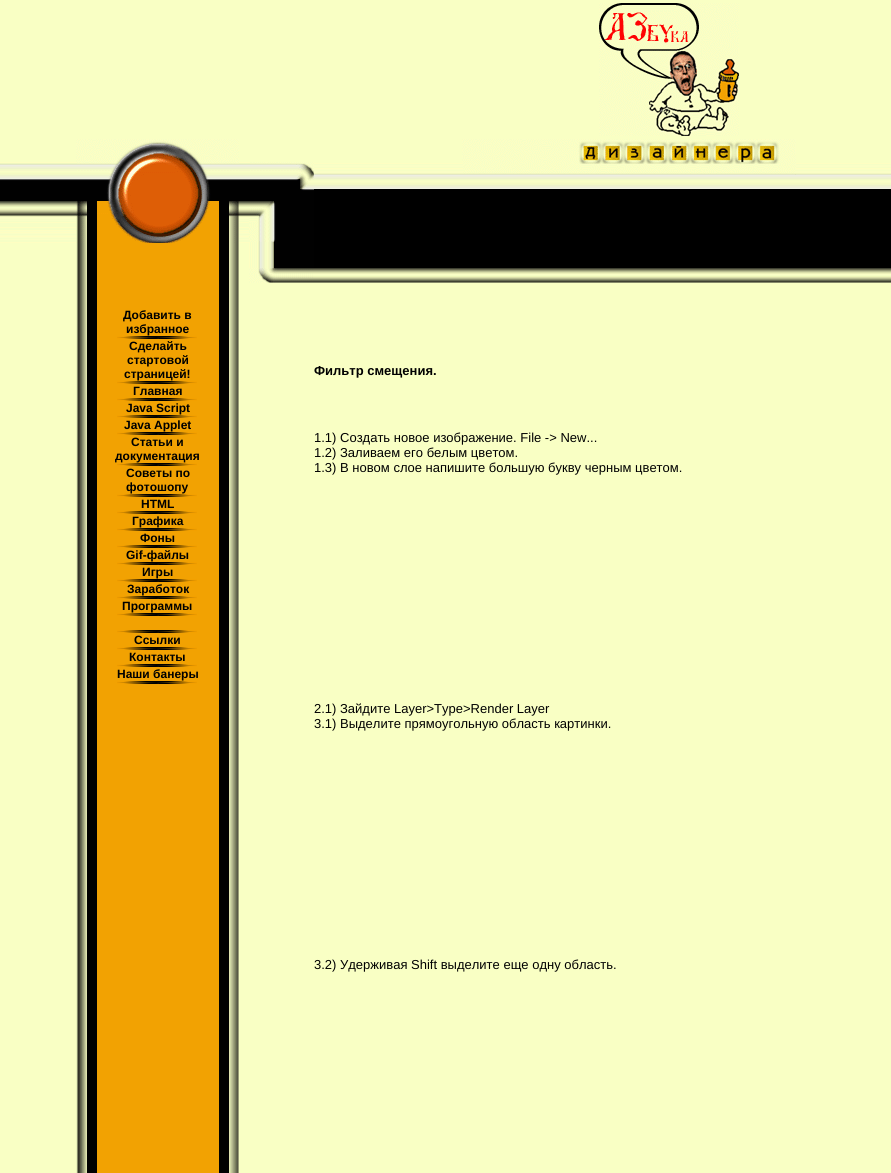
import math
import cairocffi as cairo

surface = cairo.ImageSurface(cairo.FORMAT_RGB24, 891, 1173)
ctx = cairo.Context(surface)
options = cairo.FontOptions()
options.set_hint_metrics(cairo.HINT_METRICS_OFF)
options.set_hint_style(cairo.HINT_STYLE_NONE)
ctx.set_font_options(options)
ctx.set_miter_limit(4)


def rgb(r, g, b):
    ctx.set_source_rgb(r / 255, g / 255, b / 255)


def face(family, size, italic, bold):
    ctx.select_font_face(family, cairo.FONT_SLANT_ITALIC if italic else cairo.FONT_SLANT_NORMAL, cairo.FONT_WEIGHT_BOLD if bold else cairo.FONT_WEIGHT_NORMAL)
    ctx.set_font_size(size)


def label(x, y, s):
    ctx.move_to(x, y)
    ctx.show_text(s)


def rect(x, y, w, h):
    ctx.rectangle(x, y, w, h)
    ctx.fill()


def image(path, x, y, w, h):
    ctx.save()
    ctx.set_source_surface(cairo.ImageSurface.create_from_png(path), x, y)
    ctx.rectangle(x, y, w, h)
    ctx.fill()
    ctx.restore()


rgb(249, 255, 196)
ctx.paint()
image('image0.png', 599, 3, 140, 133)
image('image1.png', 76, 139, 163, 23)
image('image2.png', 462, 139, 334, 23)
image('image3.png', 0, 162, 76, 17)
image('image4.png', 76, 162, 163, 17)
image('image5.png', 239, 162, 10, 17)
image('image6.png', 249, 162, 65, 17)
image('image7.png', 314, 163, 148, 16)
image('image8.png', 462, 163, 352, 16)
image('image9.png', 463, 162, 333, 13)
image('image10.png', 814, 163, 77, 16)
image('image11.png', 0, 179, 76, 10)
image('image12.png', 76, 179, 163, 10)
image('image13.png', 239, 179, 10, 10)
image('image14.png', 249, 179, 65, 10)
image('image15.png', 314, 179, 148, 10)
image('image16.png', 462, 179, 352, 10)
image('image17.png', 814, 179, 77, 10)
image('image18.png', 0, 189, 76, 54)
image('image19.png', 76, 189, 163, 54)
image('image20.png', 239, 189, 10, 54)
image('image21.png', 249, 189, 65, 54)
rgb(0, 0, 0)
rect(314, 189, 500, 79)
rect(814, 189, 77, 79)
image('image22.png', 76, 243, 163, 25)
image('image23.png', 249, 243, 65, 25)
image('image24.png', 76, 268, 163, 15)
image('image25.png', 249, 268, 65, 15)
image('image26.png', 314, 268, 148, 15)
image('image27.png', 462, 268, 352, 15)
image('image28.png', 814, 268, 77, 15)
image('image29.png', 76, 283, 163, 890)
face('Liberation Sans', 12, 0, 1)
label(123, 319, 'Добавить в')
label(126, 333, 'избранное')
image('image30.png', 117, 336, 80, 3)
label(129, 350, 'Сделайть')
label(127, 364, 'стартовой')
label(124, 378, 'страницей!')
image('image30.png', 117, 381, 80, 3)
label(133, 395, 'Главная')
image('image30.png', 117, 398, 80, 3)
label(126, 412, 'Java Script')
image('image30.png', 117, 415, 80, 3)
label(124, 429, 'Java Applet')
image('image30.png', 117, 432, 80, 3)
label(131, 446, 'Статьи и')
label(115, 460, 'документация')
image('image30.png', 117, 463, 80, 3)
label(126, 477, 'Советы по')
label(126, 491, 'фотошопу')
image('image30.png', 117, 494, 80, 3)
label(141, 508, 'HTML')
image('image30.png', 117, 511, 80, 3)
label(132, 525, 'Графика')
image('image30.png', 117, 528, 80, 3)
label(140, 542, 'Фоны')
image('image30.png', 117, 545, 80, 3)
label(126, 559, 'Gif-файлы')
image('image30.png', 117, 562, 80, 3)
label(142, 576, 'Игры')
image('image30.png', 117, 579, 80, 3)
label(127, 593, 'Заработок')
image('image30.png', 117, 596, 80, 3)
label(122, 610, 'Программы')
image('image30.png', 117, 613, 80, 3)
image('image30.png', 117, 630, 80, 3)
label(134, 644, 'Ссылки')
image('image30.png', 117, 647, 80, 3)
label(129, 661, 'Контакты')
image('image30.png', 117, 664, 80, 3)
label(117, 678, 'Наши банеры')
image('image30.png', 117, 681, 80, 3)
face('Liberation Sans', 13, 0, 1)
label(314, 375, 'Фильтр смещения.')
face('Liberation Sans', 13, 0, 0)
label(314, 442, '1.1) Cоздать новое изображение. File -> New...')
label(314, 457, '1.2) Заливаем его белым цветом.')
label(314, 472, '1.3) В новом слое напишите большую букву черным цветом.')
label(314, 713, '2.1) Зайдите Layer>Type>Render Layer')
label(314, 728, '3.1) Выделите прямоугольную область картинки.')
label(314, 969, '3.2) Удерживая Shift выделите еще одну область.')
surface.write_to_png('render.png')
